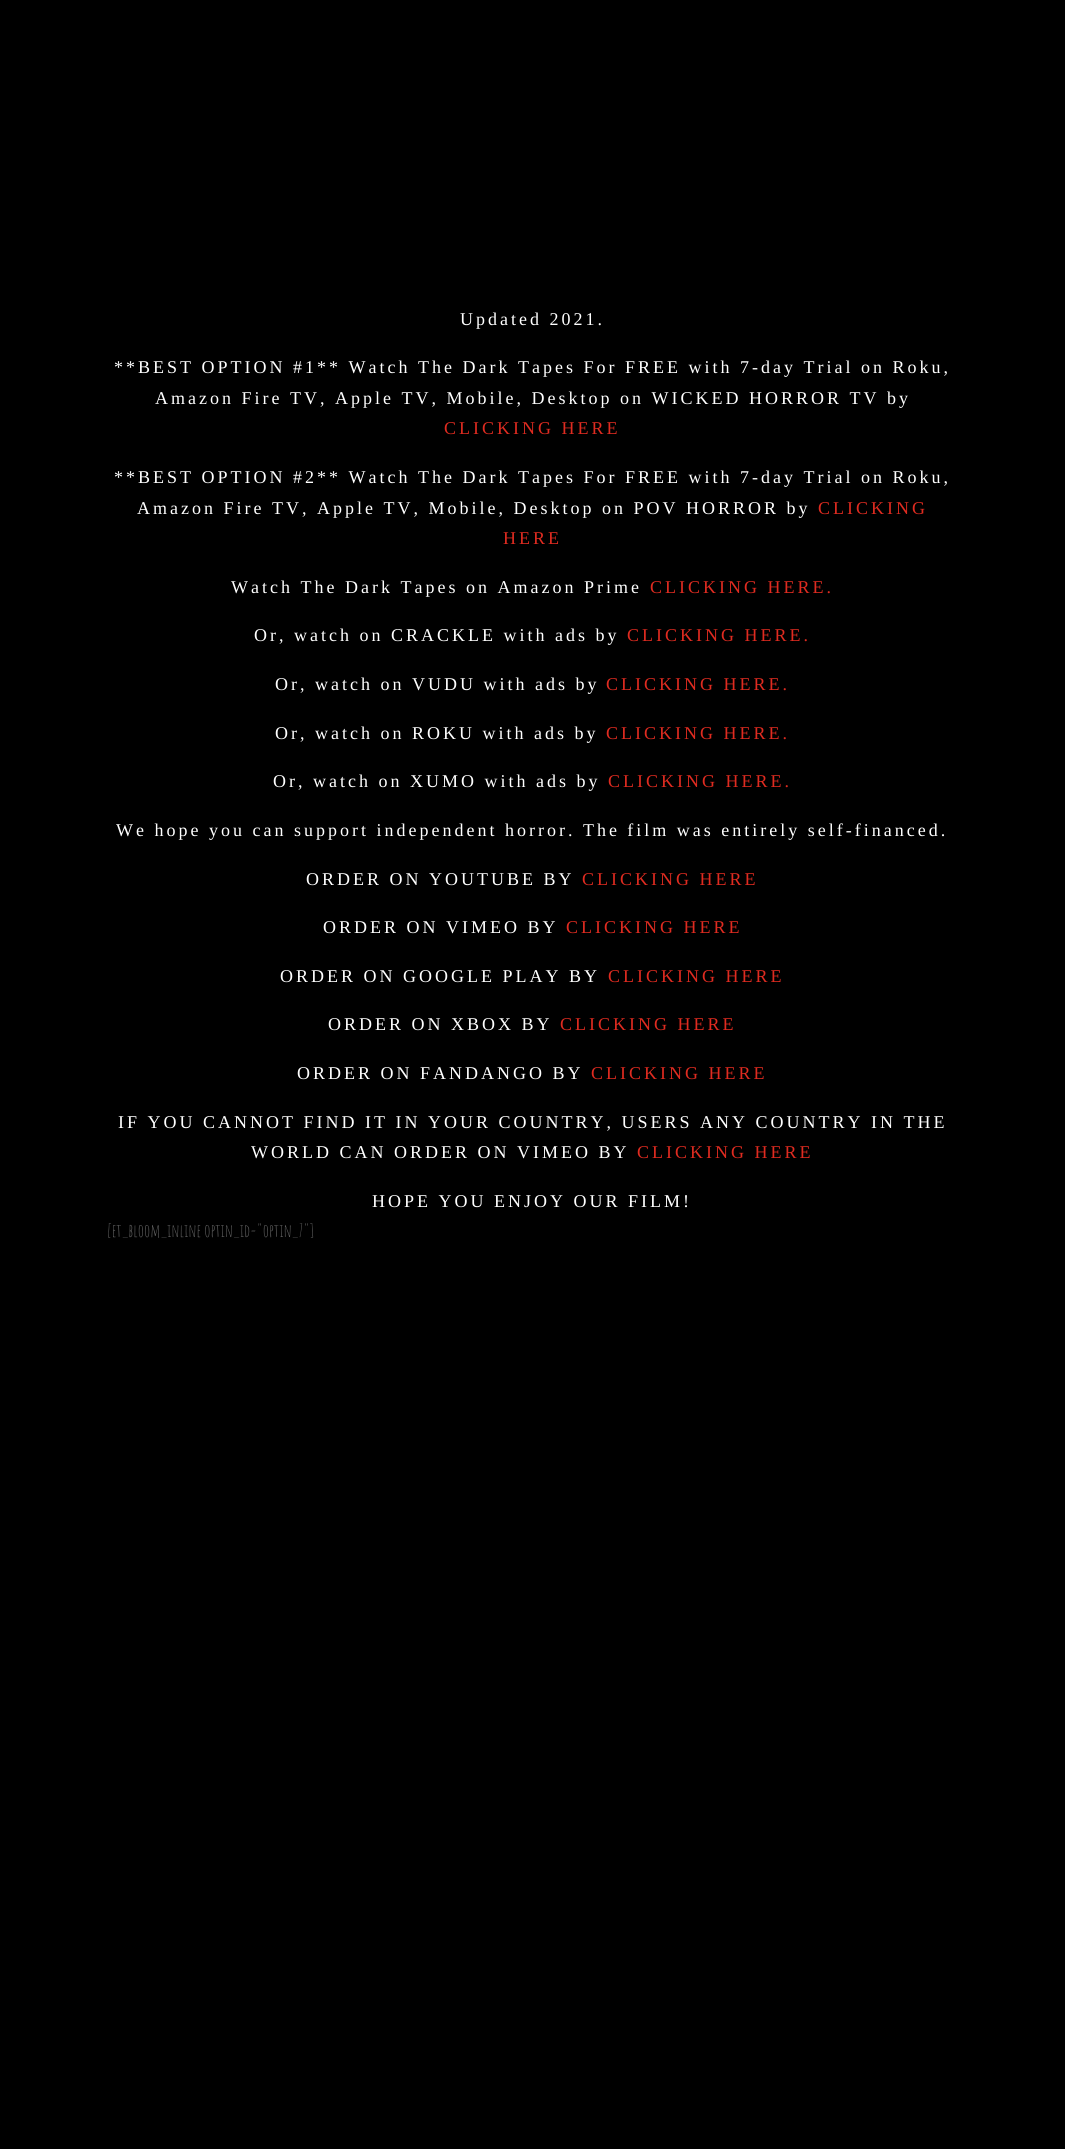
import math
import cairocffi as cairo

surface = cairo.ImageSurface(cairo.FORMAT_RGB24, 1065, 2149)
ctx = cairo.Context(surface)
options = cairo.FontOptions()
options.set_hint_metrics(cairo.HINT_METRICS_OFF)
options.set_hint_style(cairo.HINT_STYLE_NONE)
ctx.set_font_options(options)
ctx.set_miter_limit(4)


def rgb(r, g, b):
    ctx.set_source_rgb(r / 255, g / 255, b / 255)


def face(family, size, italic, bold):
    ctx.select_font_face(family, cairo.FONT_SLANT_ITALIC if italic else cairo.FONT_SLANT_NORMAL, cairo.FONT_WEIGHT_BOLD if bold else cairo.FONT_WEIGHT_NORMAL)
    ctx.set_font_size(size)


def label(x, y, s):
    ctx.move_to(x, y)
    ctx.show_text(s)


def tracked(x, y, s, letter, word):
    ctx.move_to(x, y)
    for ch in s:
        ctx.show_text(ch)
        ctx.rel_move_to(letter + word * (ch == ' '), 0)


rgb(0, 0, 0)
ctx.paint()
face('Liberation Serif', 18, 0, 0)
rgb(255, 255, 255)
tracked(460, 325, 'Updated 2021.', 3, 0)
tracked(114, 373, '**BEST OPTION #1** Watch The Dark Tapes For FREE with 7-day Trial on Roku,', 3, 0)
tracked(155, 404, 'Amazon Fire TV, Apple TV, Mobile, Desktop on WICKED HORROR TV by', 3, 0)
rgb(224, 43, 32)
tracked(444, 434, 'CLICKING HERE', 3, 0)
rgb(255, 255, 255)
tracked(114, 483, '**BEST OPTION #2** Watch The Dark Tapes For FREE with 7-day Trial on Roku,', 3, 0)
tracked(137, 514, 'Amazon Fire TV, Apple TV, Mobile, Desktop on POV HORROR by', 3, 0)
rgb(224, 43, 32)
tracked(818, 514, 'CLICKING', 3, 0)
tracked(503, 544, 'HERE', 3, 0)
rgb(255, 255, 255)
tracked(231, 593, 'Watch The Dark Tapes on Amazon Prime', 3, 0)
rgb(224, 43, 32)
tracked(650, 593, 'CLICKING HERE.', 3, 0)
rgb(255, 255, 255)
tracked(254, 641, 'Or, watch on CRACKLE with ads by', 3, 0)
rgb(224, 43, 32)
tracked(627, 641, 'CLICKING HERE.', 3, 0)
rgb(255, 255, 255)
tracked(275, 690, 'Or, watch on VUDU with ads by', 3, 0)
rgb(224, 43, 32)
tracked(606, 690, 'CLICKING HERE.', 3, 0)
rgb(255, 255, 255)
tracked(275, 739, 'Or, watch on ROKU with ads by', 3, 0)
rgb(224, 43, 32)
tracked(606, 739, 'CLICKING HERE.', 3, 0)
rgb(255, 255, 255)
tracked(273, 787, 'Or, watch on XUMO with ads by', 3, 0)
rgb(224, 43, 32)
tracked(608, 787, 'CLICKING HERE.', 3, 0)
rgb(255, 255, 255)
tracked(116, 836, 'We hope you can support independent horror. The film was entirely self-financed.', 3, 0)
tracked(306, 885, 'ORDER ON YOUTUBE BY', 3, 0)
rgb(224, 43, 32)
tracked(582, 885, 'CLICKING HERE', 3, 0)
rgb(255, 255, 255)
tracked(323, 933, 'ORDER ON VIMEO BY', 3, 0)
rgb(224, 43, 32)
tracked(566, 933, 'CLICKING HERE', 3, 0)
rgb(255, 255, 255)
tracked(280, 982, 'ORDER ON GOOGLE PLAY BY', 3, 0)
rgb(224, 43, 32)
tracked(608, 982, 'CLICKING HERE', 3, 0)
rgb(255, 255, 255)
tracked(328, 1030, 'ORDER ON XBOX BY', 3, 0)
rgb(224, 43, 32)
tracked(560, 1030, 'CLICKING HERE', 3, 0)
rgb(255, 255, 255)
tracked(297, 1079, 'ORDER ON FANDANGO BY', 3, 0)
rgb(224, 43, 32)
tracked(591, 1079, 'CLICKING HERE', 3, 0)
rgb(255, 255, 255)
tracked(118, 1128, 'IF YOU CANNOT FIND IT IN YOUR COUNTRY, USERS ANY COUNTRY IN THE', 3, 0)
tracked(251, 1158, 'WORLD CAN ORDER ON VIMEO BY', 3, 0)
rgb(224, 43, 32)
tracked(637, 1158, 'CLICKING HERE', 3, 0)
rgb(255, 255, 255)
tracked(372, 1207, 'HOPE YOU ENJOY OUR FILM!', 3, 0)
face('Amatic SC', 18, 0, 0)
rgb(102, 102, 102)
label(107, 1237, '[et_bloom_inline optin_id="optin_7"]')
surface.write_to_png('render.png')
